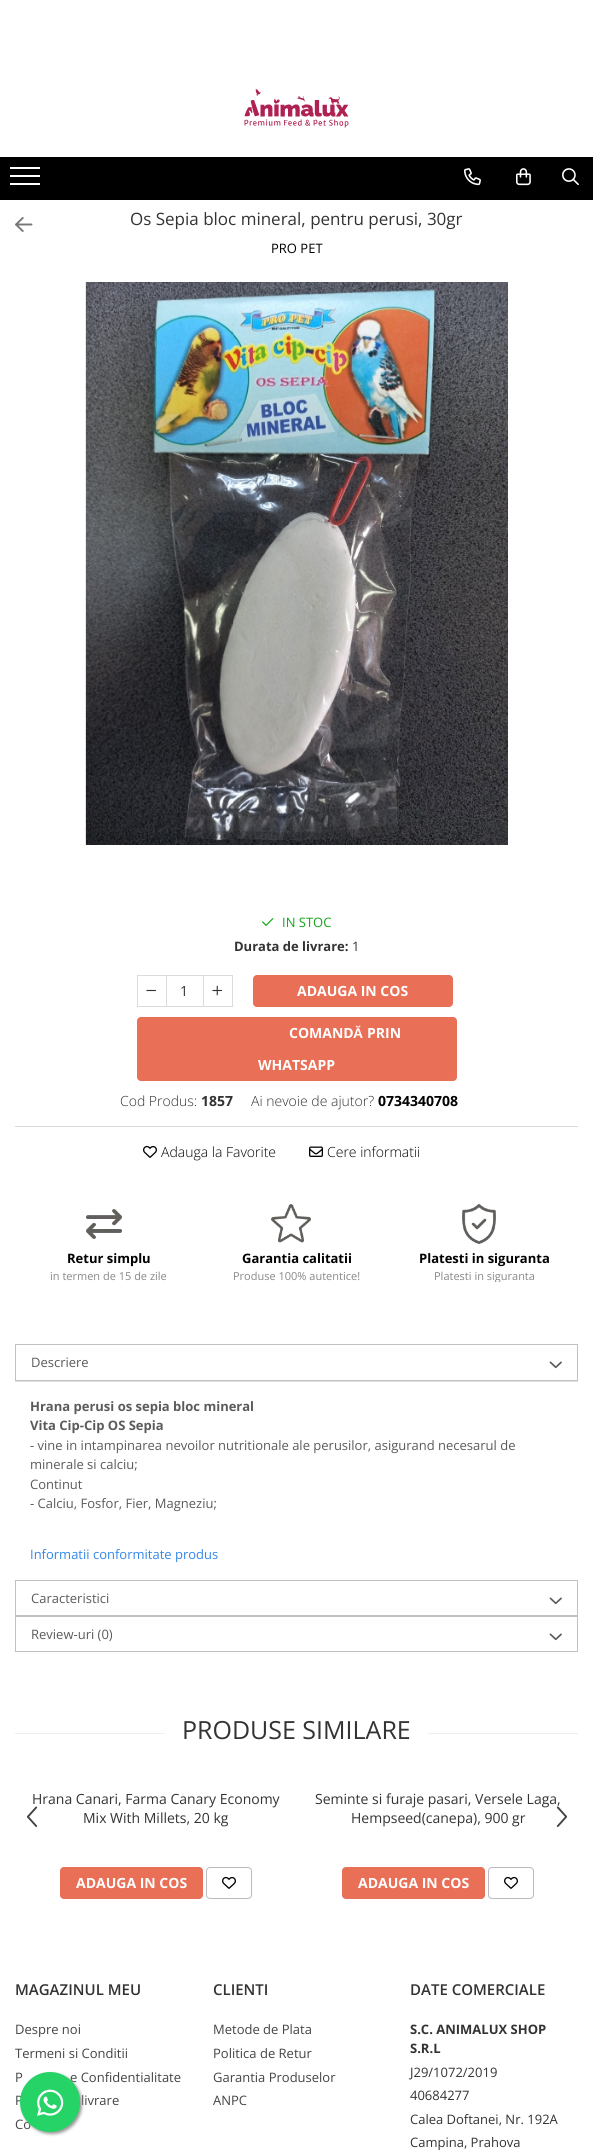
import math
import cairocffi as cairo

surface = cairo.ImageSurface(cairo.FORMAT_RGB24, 593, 2152)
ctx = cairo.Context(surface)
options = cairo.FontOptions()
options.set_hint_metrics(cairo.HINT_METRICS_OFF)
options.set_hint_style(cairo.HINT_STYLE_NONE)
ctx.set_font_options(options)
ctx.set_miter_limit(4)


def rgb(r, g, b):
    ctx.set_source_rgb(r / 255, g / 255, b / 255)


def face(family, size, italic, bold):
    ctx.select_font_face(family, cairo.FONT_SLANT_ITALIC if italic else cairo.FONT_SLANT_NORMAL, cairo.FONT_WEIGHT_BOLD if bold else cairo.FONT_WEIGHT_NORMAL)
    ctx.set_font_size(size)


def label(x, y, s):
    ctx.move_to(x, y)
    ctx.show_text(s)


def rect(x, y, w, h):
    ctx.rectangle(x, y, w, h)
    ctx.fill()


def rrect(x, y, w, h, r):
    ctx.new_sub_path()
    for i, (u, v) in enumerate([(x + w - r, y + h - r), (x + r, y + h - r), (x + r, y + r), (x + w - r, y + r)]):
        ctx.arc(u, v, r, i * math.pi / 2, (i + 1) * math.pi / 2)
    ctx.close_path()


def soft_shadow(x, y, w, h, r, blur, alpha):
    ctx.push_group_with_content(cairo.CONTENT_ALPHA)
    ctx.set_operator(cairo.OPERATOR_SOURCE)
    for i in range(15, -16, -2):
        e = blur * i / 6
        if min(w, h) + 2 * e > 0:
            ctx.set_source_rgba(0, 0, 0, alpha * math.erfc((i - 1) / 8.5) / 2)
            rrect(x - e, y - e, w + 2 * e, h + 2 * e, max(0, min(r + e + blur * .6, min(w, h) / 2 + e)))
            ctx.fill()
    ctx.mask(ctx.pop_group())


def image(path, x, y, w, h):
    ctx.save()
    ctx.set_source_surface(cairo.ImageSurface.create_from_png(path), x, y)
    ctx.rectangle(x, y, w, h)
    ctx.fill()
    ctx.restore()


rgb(255, 255, 255)
ctx.paint()
image('image0.png', 244, 88, 105, 40)
rgb(0, 0, 0)
rect(0, 157, 593, 43)
rgb(255, 255, 255)
rect(10, 175, 30, 2)
rect(10, 167, 30, 2)
rect(10, 183, 30, 2)
image('image1.png', 464, 168, 17, 18)
image('image2.png', 516, 168, 15, 18)
image('image3.png', 562, 168, 17, 18)
image('image4.png', 15, 217, 18, 15)
face('Open Sans', 17, 0, 0)
rgb(51, 51, 51)
label(130, 225, 'Os Sepia bloc mineral, pentru perusi, 30gr')
face('Open Sans', 13, 0, 0)
rgb(0, 0, 0)
label(271, 253, 'PRO PET')
image('image5.png', 85, 282, 423, 563)
image('image6.png', 262, 918, 12, 8)
rgb(17, 167, 23)
label(282, 927, 'IN STOC')
face('Open Sans', 13, 0, 1)
rgb(51, 51, 51)
label(234, 951, 'Durata de livrare:')
face('Open Sans', 13, 0, 0)
label(352, 951, '1')
ctx.rectangle(137.5, 975.5, 29, 31)
rgb(219, 219, 219)
ctx.set_line_width(1)
ctx.stroke()
image('image7.png', 146, 989, 11, 3)
rect(167, 975, 36, 1)
rect(167, 1006, 36, 1)
face('Open Sans', 14, 0, 0)
rgb(51, 51, 51)
label(180, 996, '1')
ctx.rectangle(203.5, 975.5, 29, 31)
rgb(219, 219, 219)
ctx.stroke()
image('image8.png', 212, 985, 11, 11)
rgb(233, 111, 86)
rrect(253, 975, 200, 32, 4)
ctx.fill()
face('Open Sans', 14, 0, 1)
rgb(255, 255, 255)
label(297, 996, 'ADAUGA IN COS')
rgb(233, 111, 86)
rrect(137, 1017, 320, 64, 4)
ctx.fill()
rgb(255, 255, 255)
label(289, 1038, 'COMAND')
face('Liberation Sans', 14, 0, 1)
label(353, 1038, 'Ă')
face('Open Sans', 14, 0, 1)
label(367, 1038, 'PRIN')
label(258, 1070, 'WHATSAPP')
face('Open Sans Light', 14, 0, 0)
rgb(51, 51, 51)
label(120, 1106, 'Cod Produs:')
face('Open Sans', 14, 0, 1)
label(201, 1106, '1857')
face('Open Sans Light', 14, 0, 0)
label(251, 1106, 'Ai nevoie de ajutor?')
face('Open Sans', 14, 0, 1)
rgb(0, 0, 0)
label(378, 1106, '0734340708')
rgb(219, 219, 219)
rect(15, 1126, 563, 1)
image('image9.png', 143, 1145, 14, 13)
face('Open Sans Light', 14, 0, 0)
rgb(0, 0, 0)
label(161, 1157, 'Adauga la Favorite')
image('image10.png', 309, 1146, 14, 11)
label(327, 1157, 'Cere informatii')
image('image11.png', 86, 1209, 36, 30)
face('Open Sans', 13, 0, 1)
label(67, 1263, 'Retur simplu')
face('Open Sans', 11, 0, 0)
rgb(137, 136, 136)
label(50, 1280, 'in termen de 15 de zile')
image('image12.png', 271, 1204, 40, 39)
face('Open Sans', 13, 0, 1)
rgb(0, 0, 0)
label(242, 1263, 'Garantia calitatii')
face('Open Sans', 11, 0, 0)
rgb(137, 136, 136)
label(233, 1280, 'Produse 100% autentice!')
image('image13.png', 462, 1204, 34, 40)
face('Open Sans', 13, 0, 1)
rgb(0, 0, 0)
label(419, 1263, 'Platesti in siguranta')
ctx.save()
ctx.rectangle(419, 1251, 131, 31)
ctx.clip()
face('Open Sans', 11, 0, 0)
rgb(137, 136, 136)
label(434, 1280, 'Platesti in siguranta')
ctx.restore()
ctx.rectangle(15.5, 1344.5, 562, 36)
rgb(193, 193, 193)
ctx.stroke()
face('Open Sans', 13, 0, 0)
rgb(91, 91, 91)
label(31, 1367, 'Descriere')
image('image14.png', 549, 1361, 13, 8)
rgb(223, 223, 223)
rect(15, 1381, 563, 1)
face('Open Sans', 13, 0, 1)
rgb(91, 91, 91)
label(30, 1411, 'Hrana perusi os sepia bloc mineral')
label(30, 1430, 'Vita Cip-Cip OS Sepia')
face('Open Sans', 13, 0, 0)
label(30, 1450, '- vine in intampinarea nevoilor nutritionale ale perusilor, asigurand necesarul de')
label(30, 1469, 'minerale si calciu;')
label(30, 1489, 'Continut')
label(30, 1508, '- Calciu, Fosfor, Fier, Magneziu;')
rgb(51, 136, 235)
label(30, 1559, 'Informatii conformitate produs')
ctx.rectangle(15.5, 1580.5, 562, 35)
rgb(193, 193, 193)
ctx.stroke()
rgb(91, 91, 91)
label(31, 1603, 'Caracteristici')
image('image14.png', 549, 1597, 13, 8)
ctx.rectangle(15.5, 1616.5, 562, 35)
rgb(193, 193, 193)
ctx.stroke()
rgb(91, 91, 91)
label(31, 1639, 'Review-uri (0)')
image('image14.png', 549, 1633, 13, 8)
rgb(238, 238, 238)
rect(15, 1733, 563, 1)
rgb(255, 255, 255)
rect(165, 1733, 263, 1)
face('Open Sans', 25, 0, 0)
rgb(51, 51, 51)
label(182, 1739, 'PRODUSE SIMILARE')
face('Open Sans', 14, 0, 0)
label(32, 1804, 'Hrana Canari, Farma Canary Economy')
label(83, 1823, 'Mix With Millets, 20 kg')
rgb(233, 111, 86)
rrect(60, 1867, 143, 32, 4)
ctx.fill()
face('Open Sans', 14, 0, 1)
rgb(255, 255, 255)
label(76, 1888, 'ADAUGA IN COS')
rrect(206.5, 1867.5, 45, 31, 3.5)
rgb(187, 187, 187)
ctx.stroke()
image('image9.png', 222, 1876, 14, 13)
face('Open Sans', 14, 0, 0)
rgb(51, 51, 51)
label(315, 1804, 'Seminte si furaje pasari, Versele Laga,')
label(351, 1823, 'Hempseed(canepa), 900 gr')
rgb(233, 111, 86)
rrect(342, 1867, 143, 32, 4)
ctx.fill()
face('Open Sans', 14, 0, 1)
rgb(255, 255, 255)
label(358, 1888, 'ADAUGA IN COS')
rrect(488.5, 1867.5, 45, 31, 3.5)
rgb(187, 187, 187)
ctx.stroke()
image('image9.png', 504, 1876, 14, 13)
image('image15.png', 26, 1806, 12, 21)
image('image16.png', 556, 1806, 12, 21)
face('Open Sans SemiBold', 15, 0, 0)
rgb(51, 51, 51)
label(15, 1995, 'MAGAZINUL MEU')
face('Open Sans', 13, 0, 0)
rgb(68, 68, 68)
label(15, 2034, 'Despre noi')
label(15, 2058, 'Termeni si Conditii')
label(15, 2082, 'P')
label(70, 2082, 'e Confidentialitate')
label(15, 2105, 'P')
label(81, 2105, 'livrare')
label(15, 2129, 'Co')
face('Open Sans SemiBold', 15, 0, 0)
rgb(51, 51, 51)
label(213, 1995, 'CLIENTI')
face('Open Sans', 13, 0, 0)
rgb(68, 68, 68)
label(213, 2034, 'Metode de Plata')
label(213, 2058, 'Politica de Retur')
label(213, 2082, 'Garantia Produselor')
label(213, 2105, 'ANPC')
face('Open Sans SemiBold', 15, 0, 0)
rgb(51, 51, 51)
label(410, 1995, 'DATE COMERCIALE')
face('Open Sans', 13, 0, 1)
label(410, 2034, 'S.C. ANIMALUX SHOP')
label(410, 2053, 'S.R.L')
face('Open Sans', 13, 0, 0)
label(410, 2077, 'J29/1072/2019')
label(410, 2100, '40684277')
label(410, 2124, 'Calea Doftanei, Nr. 192A')
label(410, 2147, 'Campina, Prahova')
rgb(153, 153, 153)
soft_shadow(22, 2074, 60, 60, 30, 1.5, 1)
rgb(37, 211, 102)
ctx.arc(50, 2102, 30, 0, 2 * math.pi)
ctx.fill()
image('image17.png', 37, 2089, 27, 27)
surface.write_to_png('render.png')
